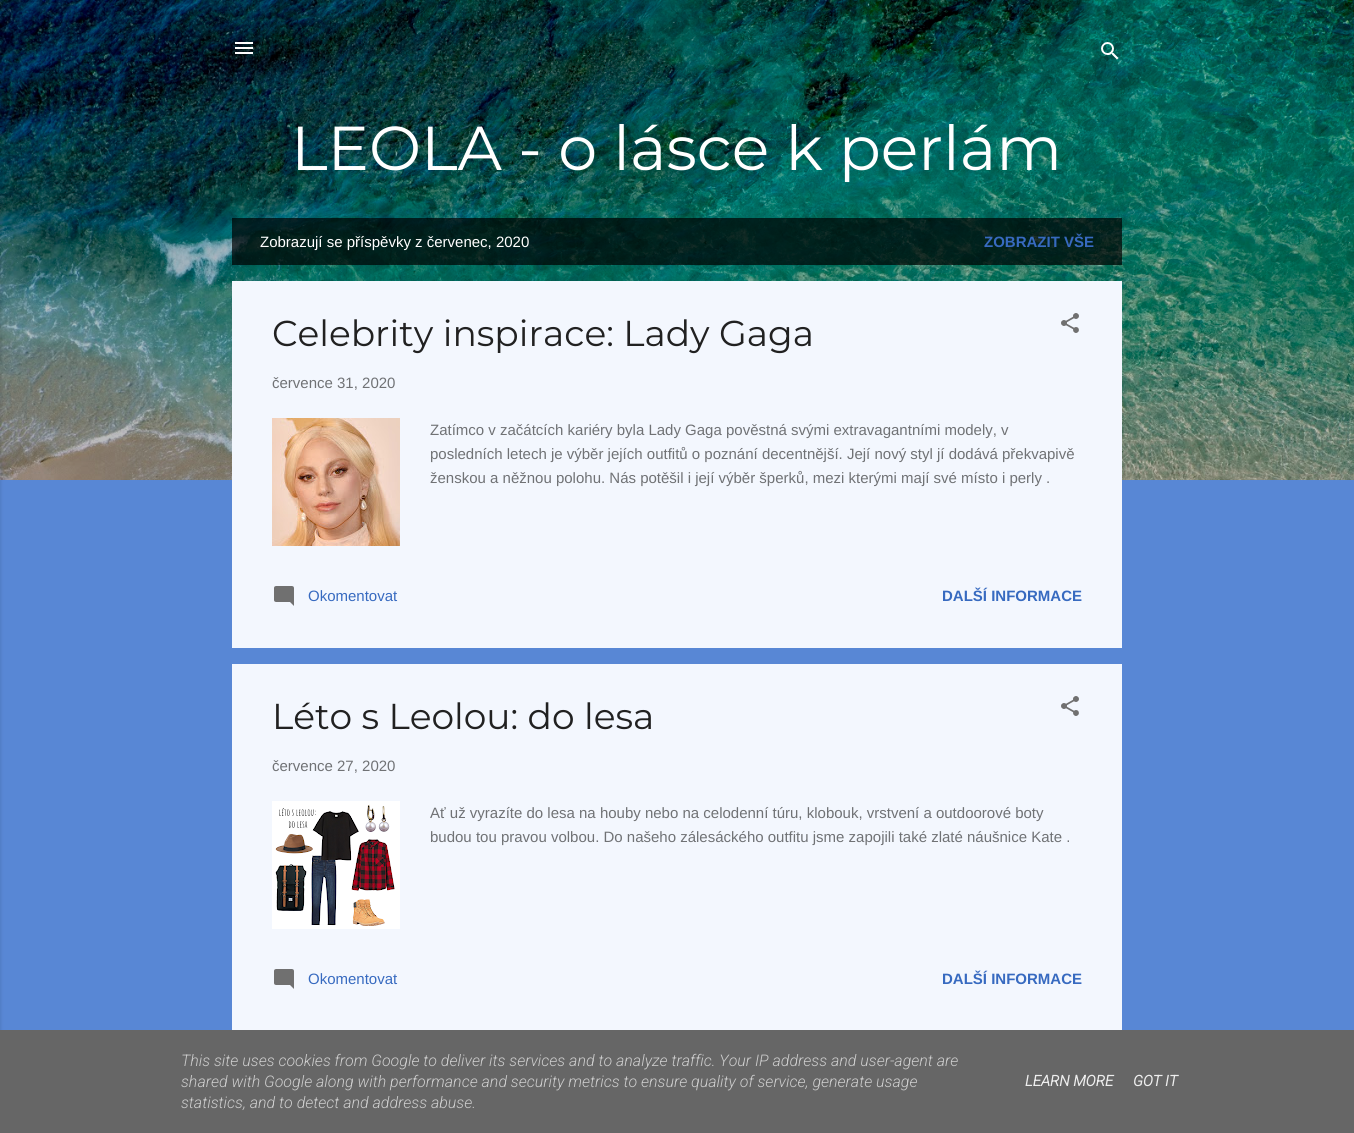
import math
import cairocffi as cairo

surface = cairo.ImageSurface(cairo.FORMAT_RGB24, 1354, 1133)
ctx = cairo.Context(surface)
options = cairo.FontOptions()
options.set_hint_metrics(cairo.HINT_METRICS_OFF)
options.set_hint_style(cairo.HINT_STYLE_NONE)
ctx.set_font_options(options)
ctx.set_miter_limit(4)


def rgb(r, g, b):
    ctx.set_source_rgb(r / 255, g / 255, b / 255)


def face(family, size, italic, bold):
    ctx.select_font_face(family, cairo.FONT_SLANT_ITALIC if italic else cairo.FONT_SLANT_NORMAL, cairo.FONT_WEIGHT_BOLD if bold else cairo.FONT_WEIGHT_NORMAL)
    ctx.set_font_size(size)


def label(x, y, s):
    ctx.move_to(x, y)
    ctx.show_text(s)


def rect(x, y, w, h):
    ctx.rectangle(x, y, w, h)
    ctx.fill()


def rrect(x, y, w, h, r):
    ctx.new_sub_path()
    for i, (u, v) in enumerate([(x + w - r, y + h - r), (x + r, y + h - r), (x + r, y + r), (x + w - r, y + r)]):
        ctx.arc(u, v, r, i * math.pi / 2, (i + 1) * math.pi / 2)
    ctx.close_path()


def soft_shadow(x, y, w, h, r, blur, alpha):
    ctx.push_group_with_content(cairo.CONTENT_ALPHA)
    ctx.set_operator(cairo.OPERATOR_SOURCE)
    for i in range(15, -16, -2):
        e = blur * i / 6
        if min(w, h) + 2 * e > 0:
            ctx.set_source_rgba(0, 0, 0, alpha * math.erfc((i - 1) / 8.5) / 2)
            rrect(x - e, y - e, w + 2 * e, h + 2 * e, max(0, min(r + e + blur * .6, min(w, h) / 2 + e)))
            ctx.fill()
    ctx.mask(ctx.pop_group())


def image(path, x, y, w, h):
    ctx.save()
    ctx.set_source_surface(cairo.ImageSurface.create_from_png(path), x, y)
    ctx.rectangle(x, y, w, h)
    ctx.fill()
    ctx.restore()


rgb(88, 135, 213)
ctx.paint()
image('image0.png', 0, 0, 1354, 480)
rgb(0, 0, 0)
soft_shadow(-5, 1, 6, 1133, 0, 1.5, 0.1)
image('image1.png', 235, 42, 18, 12)
image('image2.png', 1101, 42, 18, 18)
face('Montserrat Thin', 62, 0, 0)
rgb(255, 255, 255)
label(291, 170, 'LEOLA - o lásce k perlám')
ctx.set_source_rgba(0, 0, 0, 0.7)
rect(232, 218, 890, 47)
face('Liberation Sans', 15, 0, 0)
rgb(255, 255, 255)
label(260, 247, 'Zobrazují se příspěvky z červenec, 2020')
face('Liberation Sans', 15, 0, 1)
rgb(55, 106, 192)
label(984, 247, 'ZOBRAZIT VŠE')
rgb(243, 247, 254)
rect(232, 281, 890, 367)
face('Montserrat Thin', 36, 0, 0)
rgb(33, 33, 33)
label(272, 346, 'Celebrity inspirace: Lady Gaga')
image('image3.png', 1061, 313, 18, 20)
face('Liberation Sans', 15, 0, 0)
rgb(112, 114, 117)
label(272, 388, 'července 31, 2020')
image('image4.png', 272, 418, 128, 128)
label(430, 435, 'Zatímco v začátcích kariéry byla Lady Gaga pověstná svými extravagantními modely, v')
label(430, 459, 'posledních letech je výběr jejích outfitů o poznání decentnější. Její nový styl jí dodává překvapivě')
label(430, 483, 'ženskou a něžnou polohu. Nás potěšil i její výběr šperků, mezi kterými mají své místo i perly .')
image('image5.png', 274, 586, 20, 20)
rgb(55, 106, 192)
label(308, 601, 'Okomentovat')
face('Liberation Sans', 15, 0, 1)
label(942, 601, 'DALŠÍ INFORMACE')
rgb(243, 247, 254)
rect(232, 664, 890, 366)
face('Montserrat Thin', 36, 0, 0)
rgb(33, 33, 33)
label(272, 729, 'Léto s Leolou: do lesa')
image('image3.png', 1061, 696, 18, 20)
face('Liberation Sans', 15, 0, 0)
rgb(112, 114, 117)
label(272, 771, 'července 27, 2020')
image('image6.png', 272, 801, 128, 128)
label(430, 818, 'Ať už vyrazíte do lesa na houby nebo na celodenní túru, klobouk, vrstvení a outdoorové boty')
label(430, 842, 'budou tou pravou volbou. Do našeho zálesáckého outfitu jsme zapojili také zlaté náušnice Kate .')
image('image5.png', 274, 969, 20, 20)
rgb(55, 106, 192)
label(308, 984, 'Okomentovat')
face('Liberation Sans', 15, 0, 1)
label(942, 984, 'DALŠÍ INFORMACE')
rgb(102, 102, 102)
rect(0, 1030, 1354, 103)
face('Roboto Light', 16, 1, 0)
rgb(204, 204, 204)
label(181, 1066, 'This site uses cookies from Google to deliver its services and to analyze traffic. Your IP address and user-agent are')
label(181, 1087, 'shared with Google along with performance and security metrics to ensure quality of service, generate usage')
label(181, 1108, 'statistics, and to detect and address abuse.')
face('Roboto', 15, 1, 1)
rgb(238, 238, 238)
label(1025, 1086, 'LEARN MORE')
label(1133, 1086, 'GOT IT')
surface.write_to_png('render.png')
